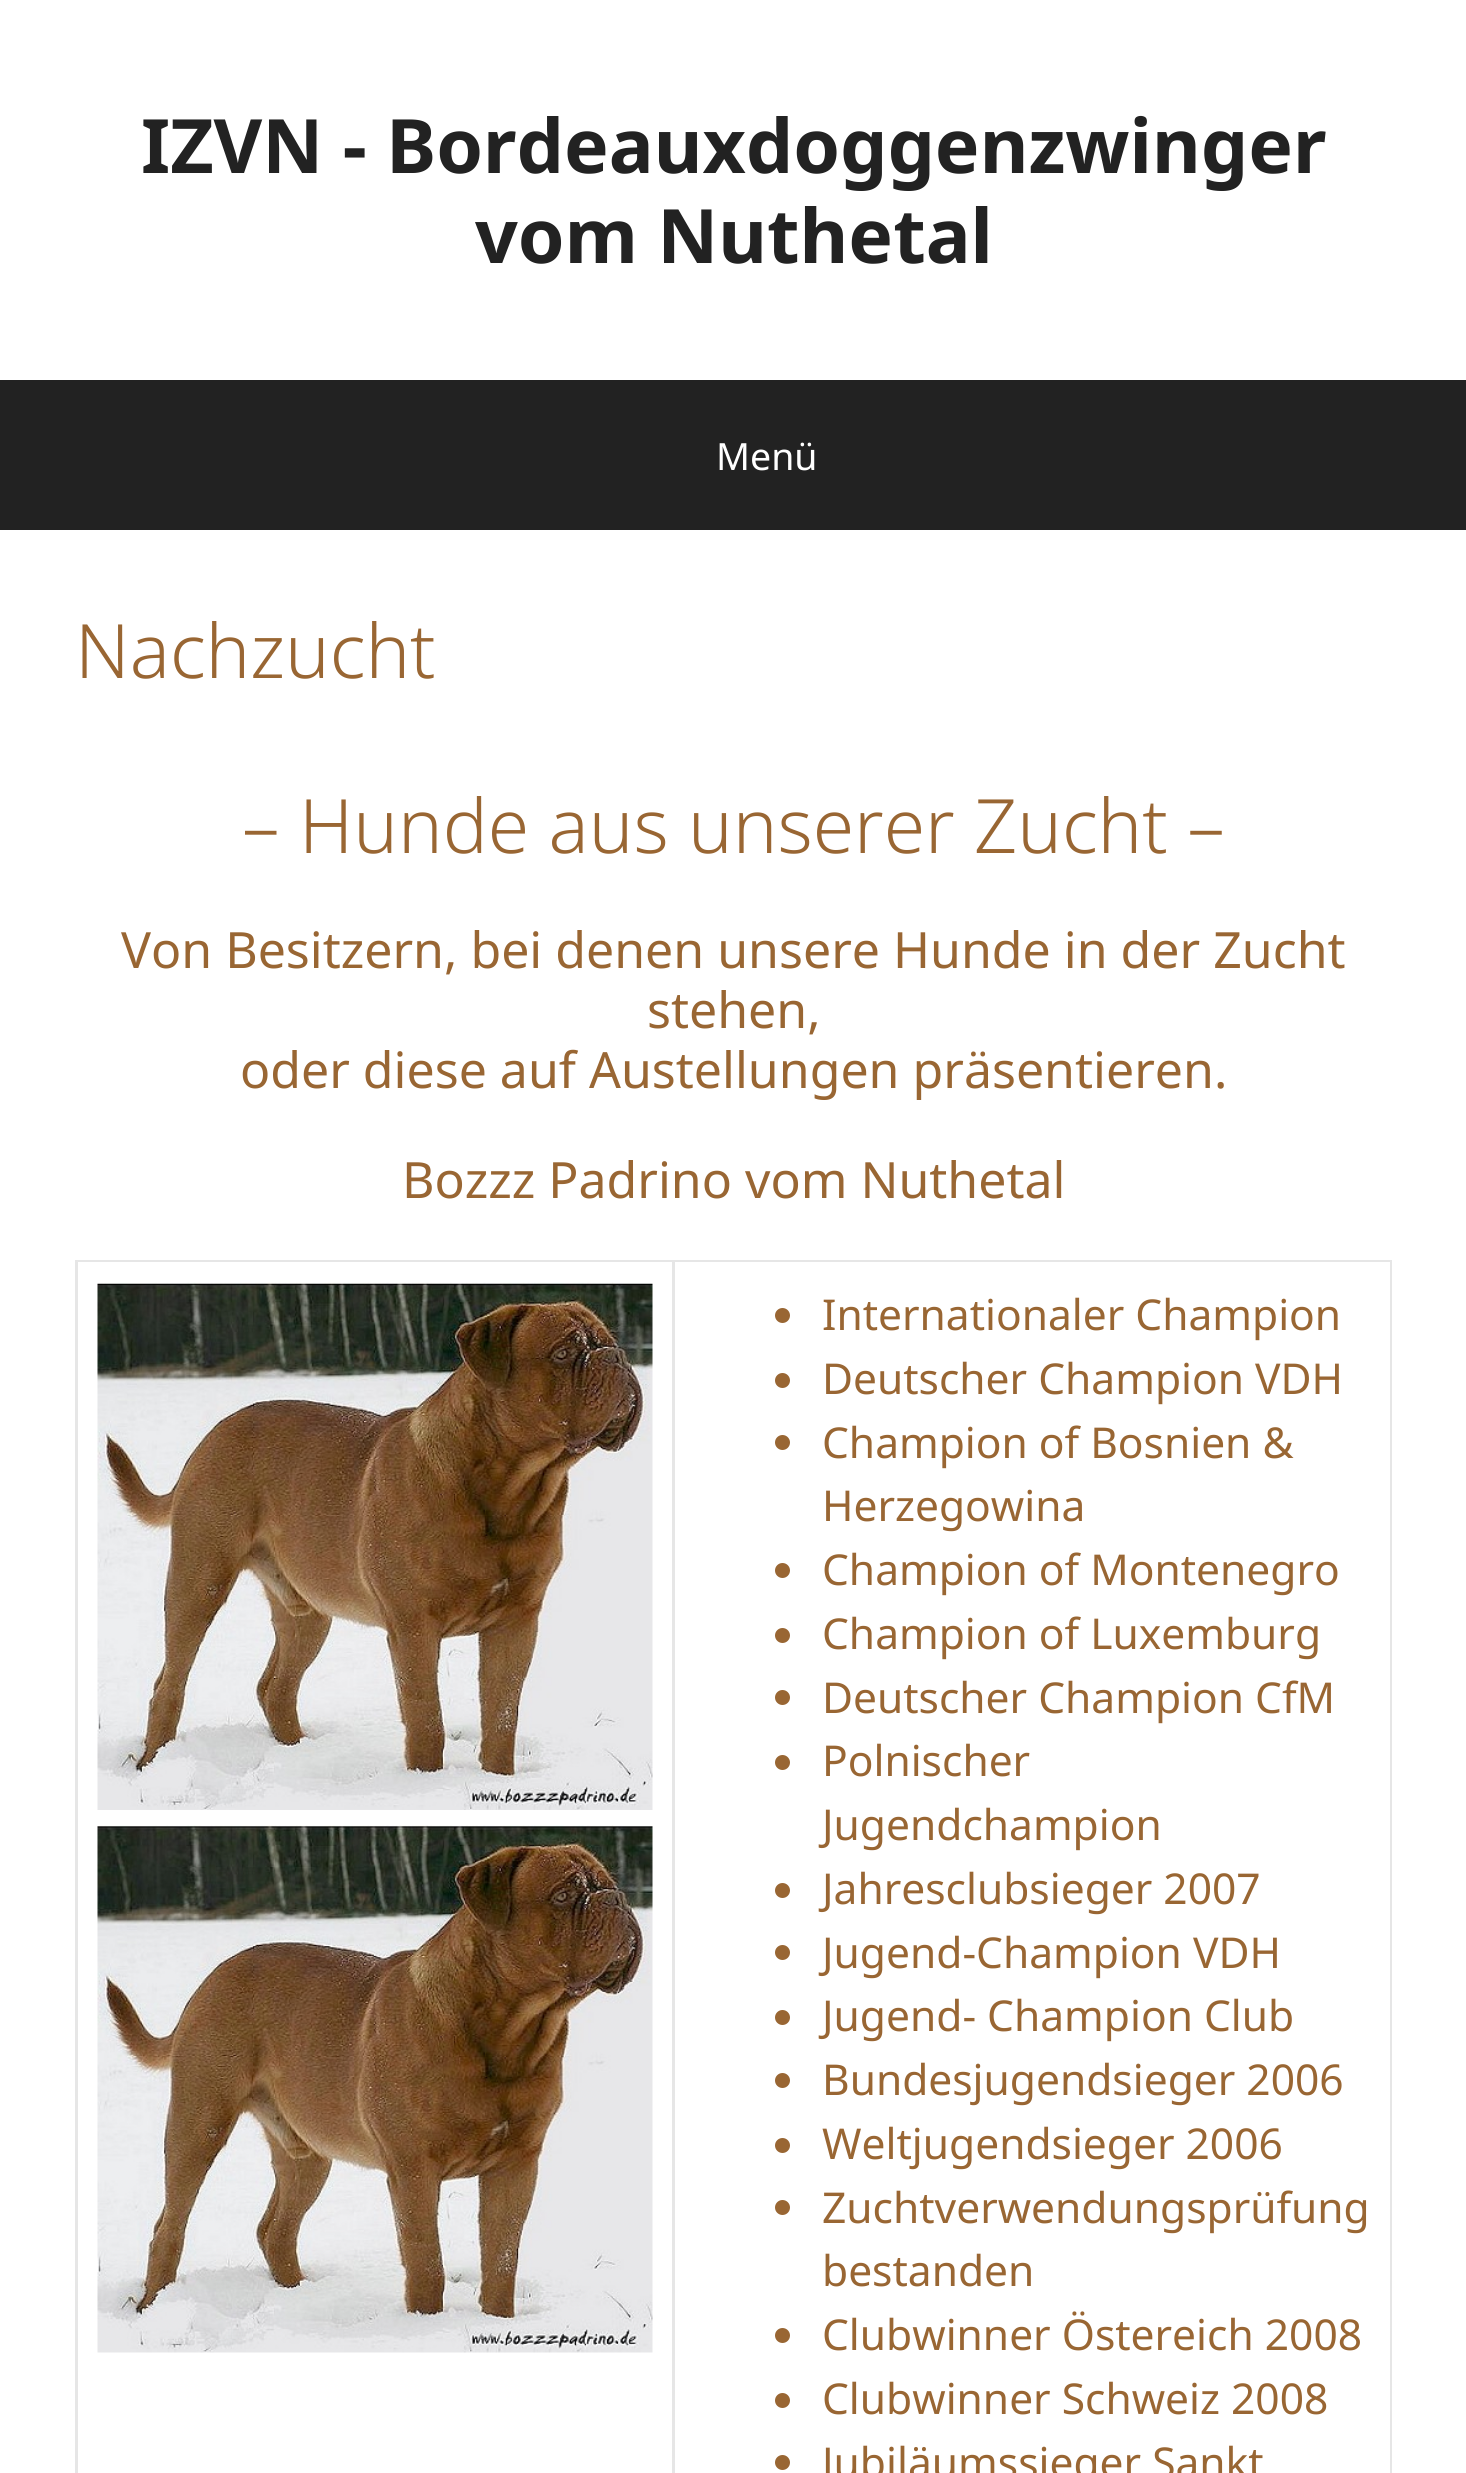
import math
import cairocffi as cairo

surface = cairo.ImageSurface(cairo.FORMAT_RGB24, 1466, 2473)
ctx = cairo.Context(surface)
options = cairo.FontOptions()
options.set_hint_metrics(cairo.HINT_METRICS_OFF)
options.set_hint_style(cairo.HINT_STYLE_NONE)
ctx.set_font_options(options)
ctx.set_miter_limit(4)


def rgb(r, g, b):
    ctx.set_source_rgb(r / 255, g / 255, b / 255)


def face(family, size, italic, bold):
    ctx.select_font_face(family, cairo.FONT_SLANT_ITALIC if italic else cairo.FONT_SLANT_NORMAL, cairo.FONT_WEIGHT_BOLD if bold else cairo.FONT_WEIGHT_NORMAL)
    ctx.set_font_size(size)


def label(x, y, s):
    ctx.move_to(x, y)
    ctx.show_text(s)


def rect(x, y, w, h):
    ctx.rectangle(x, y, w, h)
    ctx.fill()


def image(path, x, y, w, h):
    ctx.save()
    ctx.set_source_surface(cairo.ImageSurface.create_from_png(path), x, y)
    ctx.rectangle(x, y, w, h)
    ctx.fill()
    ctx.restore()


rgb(34, 34, 34)
ctx.paint()
rgb(255, 255, 255)
rect(0, 0, 1466, 380)
face('Noto Sans', 75, 0, 1)
rgb(34, 34, 34)
label(141, 173, 'IZVN - Bordeauxdoggenzwinger')
label(475, 263, 'vom Nuthetal')
face('Noto Sans', 37.5, 0, 0)
rgb(255, 255, 255)
label(716, 470, 'Menü')
rect(0, 530, 1466, 1943)
face('Noto Sans Light', 75, 0, 0)
rgb(153, 102, 51)
label(75, 678, 'Nachzucht')
label(242, 853, '– Hunde aus unserer Zucht –')
face('Noto Sans', 50, 0, 0)
label(121, 968, 'Von Besitzern, bei denen unsere Hunde in der Zucht')
label(647, 1028, 'stehen,')
label(240, 1088, 'oder diese auf Austellungen präsentieren.')
label(402, 1198, 'Bozzz Padrino vom Nuthetal')
rgb(230, 230, 230)
ctx.new_path()
ctx.move_to(75, 1260)
ctx.line_to(1392, 1260)
ctx.line_to(1392, 1262)
ctx.line_to(78, 1262)
ctx.close_path()
ctx.fill()
ctx.set_source_rgba(0, 0, 0, 0.1)
ctx.new_path()
ctx.move_to(75, 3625)
ctx.line_to(75, 1260)
ctx.line_to(78, 1262)
ctx.line_to(78, 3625)
ctx.close_path()
ctx.fill()
rgb(230, 230, 230)
ctx.new_path()
ctx.move_to(675, 1262)
ctx.line_to(675, 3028)
ctx.line_to(672, 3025)
ctx.line_to(672, 1262)
ctx.close_path()
ctx.fill()
image('image0.png', 97, 1282, 556, 528)
image('image1.png', 97, 1825, 556, 528)
ctx.new_path()
ctx.move_to(1392, 1262)
ctx.line_to(1392, 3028)
ctx.line_to(1390, 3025)
ctx.line_to(1390, 1262)
ctx.close_path()
ctx.fill()
rgb(153, 102, 51)
ctx.arc(782.5, 1315.5, 7.5, 0, 2 * math.pi)
ctx.fill()
face('Noto Sans', 42.5, 0, 0)
label(822, 1330, 'Internationaler Champion')
ctx.new_path()
ctx.arc(782.5, 1380.5, 7.5, 0, 2 * math.pi)
ctx.fill()
label(822, 1394, 'Deutscher Champion VDH')
ctx.new_path()
ctx.arc(782.5, 1442.5, 7.5, 0, 2 * math.pi)
ctx.fill()
label(822, 1458, 'Champion of Bosnien &')
label(822, 1521, 'Herzegowina')
ctx.new_path()
ctx.arc(782.5, 1570.5, 7.5, 0, 2 * math.pi)
ctx.fill()
label(822, 1585, 'Champion of Montenegro')
ctx.new_path()
ctx.arc(782.5, 1635.5, 7.5, 0, 2 * math.pi)
ctx.fill()
label(822, 1649, 'Champion of Luxemburg')
ctx.new_path()
ctx.arc(782.5, 1697.5, 7.5, 0, 2 * math.pi)
ctx.fill()
label(822, 1713, 'Deutscher Champion CfM')
ctx.new_path()
ctx.arc(782.5, 1762.5, 7.5, 0, 2 * math.pi)
ctx.fill()
label(822, 1776, 'Polnischer')
label(822, 1840, 'Jugendchampion')
ctx.new_path()
ctx.arc(782.5, 1890.5, 7.5, 0, 2 * math.pi)
ctx.fill()
label(822, 1904, 'Jahresclubsieger 2007')
ctx.new_path()
ctx.arc(782.5, 1952.5, 7.5, 0, 2 * math.pi)
ctx.fill()
label(822, 1968, 'Jugend-Champion VDH')
ctx.new_path()
ctx.arc(782.5, 2017.5, 7.5, 0, 2 * math.pi)
ctx.fill()
label(822, 2031, 'Jugend- Champion Club')
ctx.new_path()
ctx.arc(782.5, 2080.5, 7.5, 0, 2 * math.pi)
ctx.fill()
label(822, 2095, 'Bundesjugendsieger 2006')
ctx.new_path()
ctx.arc(782.5, 2145.5, 7.5, 0, 2 * math.pi)
ctx.fill()
label(822, 2159, 'Weltjugendsieger 2006')
ctx.new_path()
ctx.arc(782.5, 2207.5, 7.5, 0, 2 * math.pi)
ctx.fill()
label(822, 2223, 'Zuchtverwendungsprüfung')
label(822, 2286, 'bestanden')
ctx.new_path()
ctx.arc(782.5, 2335.5, 7.5, 0, 2 * math.pi)
ctx.fill()
label(822, 2350, 'Clubwinner Östereich 2008')
ctx.new_path()
ctx.arc(782.5, 2400.5, 7.5, 0, 2 * math.pi)
ctx.fill()
label(822, 2414, 'Clubwinner Schweiz 2008')
ctx.new_path()
ctx.arc(782.5, 2462.5, 7.5, 0, 2 * math.pi)
ctx.fill()
label(822, 2478, 'Jubiläumssieger Sankt')
surface.write_to_png('render.png')
